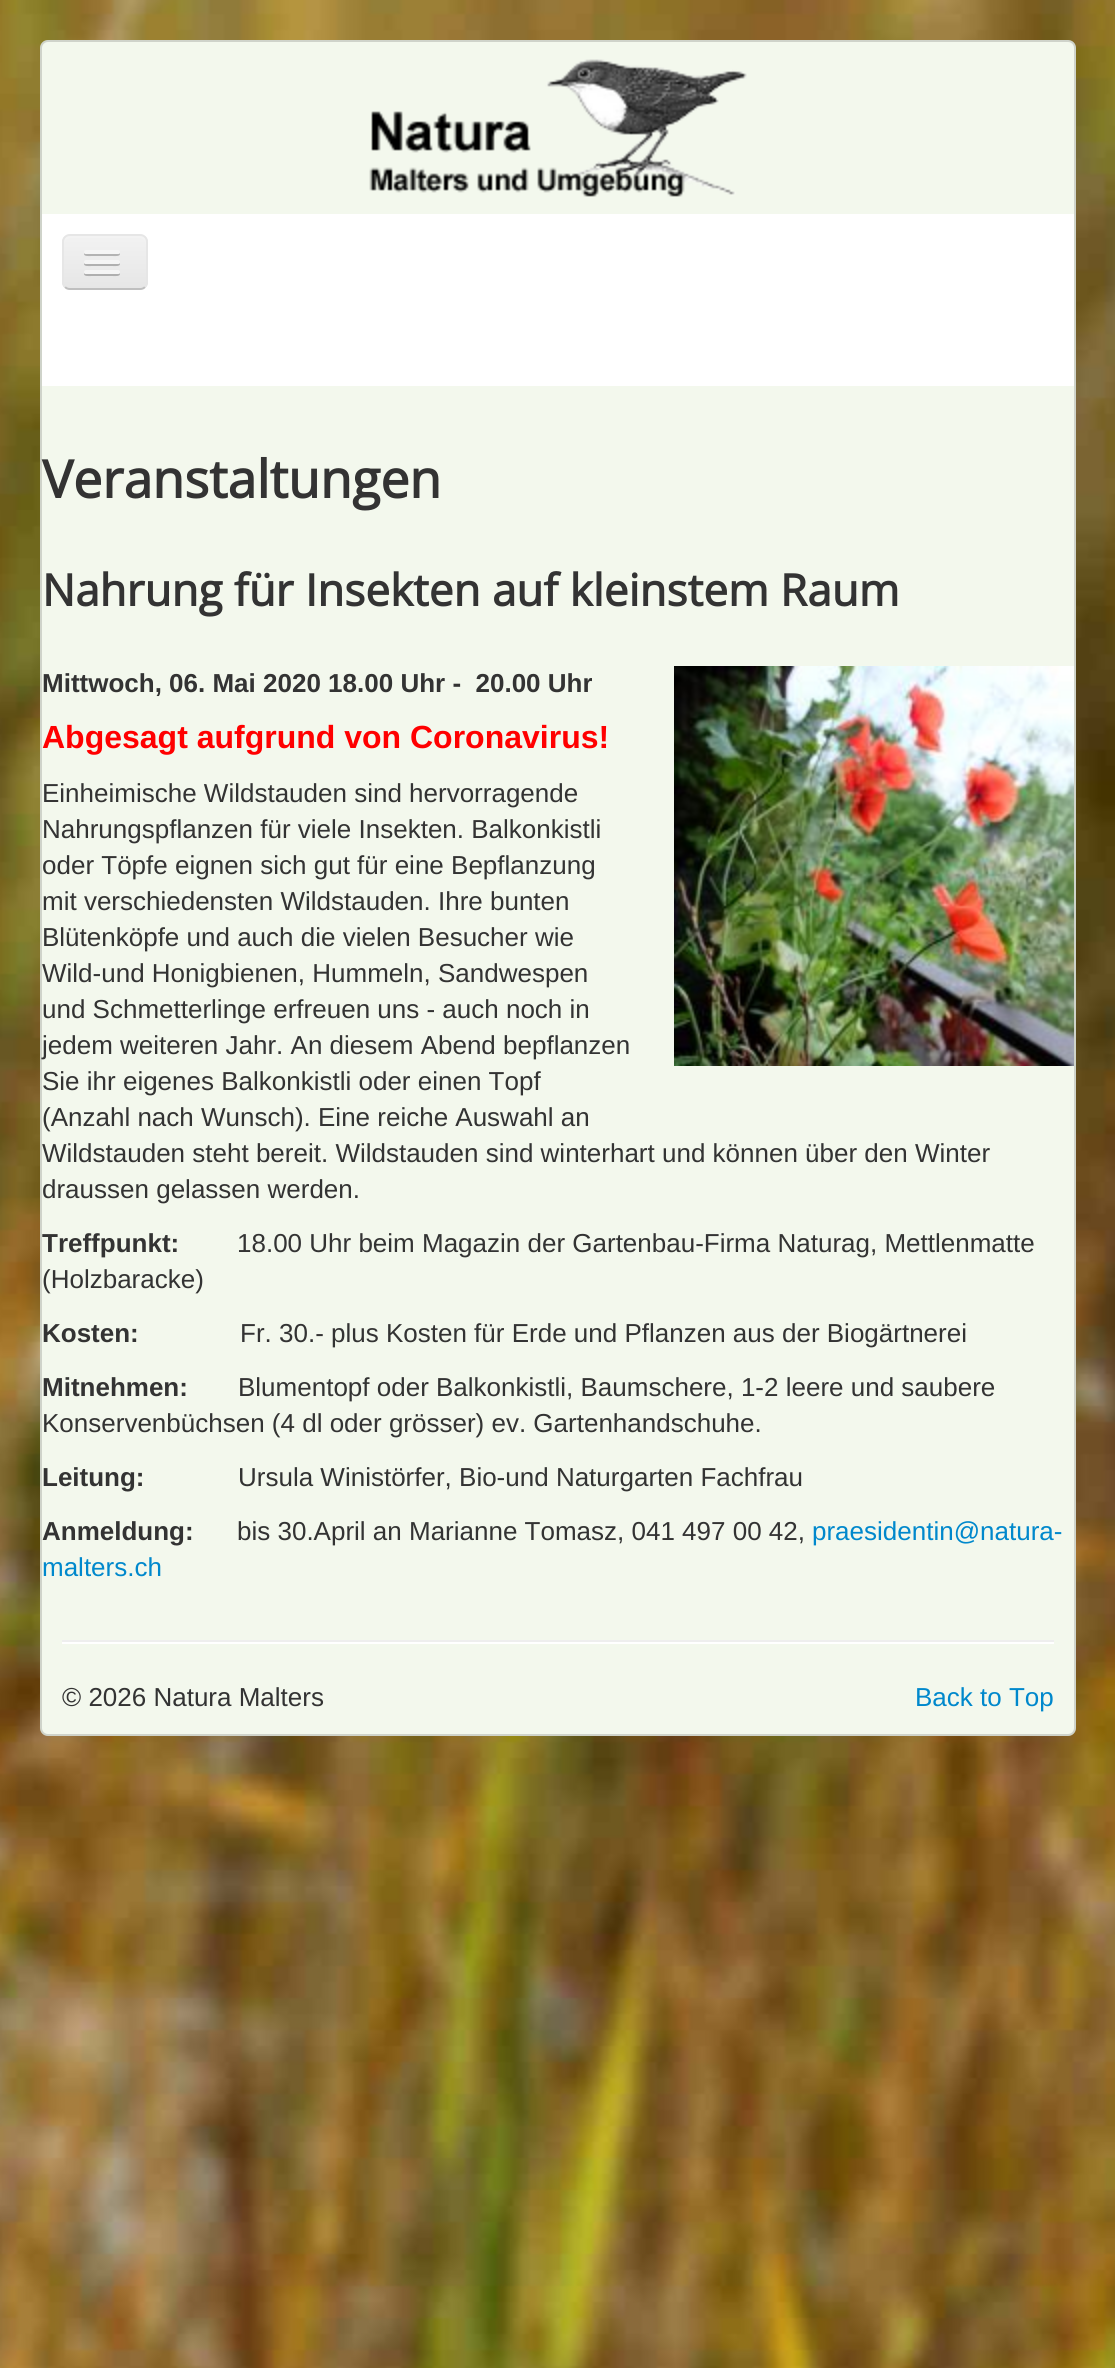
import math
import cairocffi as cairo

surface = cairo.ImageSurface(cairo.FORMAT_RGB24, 1115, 2368)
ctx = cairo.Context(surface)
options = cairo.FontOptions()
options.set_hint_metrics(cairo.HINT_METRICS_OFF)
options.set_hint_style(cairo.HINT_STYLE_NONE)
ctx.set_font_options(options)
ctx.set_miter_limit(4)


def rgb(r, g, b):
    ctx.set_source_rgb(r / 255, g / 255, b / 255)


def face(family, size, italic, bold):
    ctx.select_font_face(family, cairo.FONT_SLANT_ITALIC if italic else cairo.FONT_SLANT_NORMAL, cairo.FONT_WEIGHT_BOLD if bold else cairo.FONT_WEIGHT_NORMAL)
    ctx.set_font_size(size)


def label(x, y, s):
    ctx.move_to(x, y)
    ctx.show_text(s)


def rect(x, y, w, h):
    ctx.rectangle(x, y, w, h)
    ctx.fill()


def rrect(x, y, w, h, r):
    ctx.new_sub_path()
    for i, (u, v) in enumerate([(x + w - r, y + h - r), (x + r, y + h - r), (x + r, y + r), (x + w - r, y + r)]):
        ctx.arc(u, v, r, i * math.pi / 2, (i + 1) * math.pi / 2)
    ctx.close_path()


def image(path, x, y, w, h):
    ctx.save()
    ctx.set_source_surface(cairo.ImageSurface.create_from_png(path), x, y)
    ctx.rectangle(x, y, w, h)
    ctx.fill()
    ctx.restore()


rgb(255, 255, 255)
ctx.paint()
image('image0.png', 0, 0, 1115, 2368)
rgb(243, 248, 237)
rrect(40, 40, 1036, 1696, 8)
ctx.fill()
rrect(41, 41, 1034, 1694, 7)
ctx.set_source_rgba(0, 0, 0, 0.15)
ctx.stroke()
image('image1.png', 369, 59, 378, 138)
rgb(255, 255, 255)
rect(42, 214, 1032, 172)
ctx.save()
rrect(62, 234, 86, 56, 8)
ctx.clip()
gradient = cairo.LinearGradient(105, 236, 105, 288)
gradient.add_color_stop_rgba(0, 0.949, 0.949, 0.949, 1)
gradient.add_color_stop_rgba(1, 0.902, 0.902, 0.902, 1)
ctx.set_source(gradient)
rect(62, 236, 86, 52)
ctx.restore()
rgb(243, 243, 243)
ctx.new_path()
ctx.move_to(70, 238)
ctx.line_to(140, 238)
ctx.curve_to(143, 238, 146, 241, 146, 244)
ctx.curve_to(146, 233, 137, 236, 128, 236)
ctx.line_to(82, 236)
ctx.curve_to(73, 236, 64, 233, 64, 244)
ctx.curve_to(64, 241, 67, 238, 70, 238)
ctx.close_path()
ctx.fill()
ctx.new_path()
ctx.move_to(145, 287)
ctx.curve_to(143.5, 288.5, 142, 289, 140, 289)
ctx.line_to(70, 289)
ctx.curve_to(68, 289, 66.5, 288.5, 65, 287)
rgb(191, 191, 191)
ctx.stroke()
ctx.new_path()
ctx.move_to(65, 287)
ctx.curve_to(63.5, 285.5, 63, 284, 63, 282)
ctx.line_to(63, 242)
ctx.curve_to(63, 240, 63.5, 238.5, 65, 237)
ctx.curve_to(66.5, 235.5, 68, 235, 70, 235)
ctx.line_to(140, 235)
ctx.curve_to(142, 235, 143.5, 235.5, 145, 237)
ctx.curve_to(146.5, 238.5, 147, 240, 147, 242)
ctx.line_to(147, 282)
ctx.curve_to(147, 284, 146.5, 285.5, 145, 287)
rgb(230, 230, 230)
ctx.stroke()
rgb(179, 179, 179)
ctx.new_path()
ctx.move_to(84.5, 253)
ctx.curve_to(82, 257, 91, 256, 91.5, 256)
ctx.line_to(112.5, 256)
ctx.curve_to(113, 256, 122, 257, 119.5, 253)
ctx.curve_to(119.5, 253.5, 118.5, 254, 118, 254)
ctx.line_to(86, 254)
ctx.curve_to(85.5, 254, 84.5, 253.5, 84.5, 253)
ctx.close_path()
ctx.fill()
rgb(245, 245, 245)
rrect(84, 250, 36, 4, 2)
ctx.fill()
rgb(176, 176, 176)
ctx.new_path()
ctx.move_to(84.5, 263)
ctx.curve_to(82, 267, 91, 266, 91.5, 266)
ctx.line_to(112.5, 266)
ctx.curve_to(113, 266, 122, 267, 119.5, 263)
ctx.curve_to(119.5, 263.5, 118.5, 264, 118, 264)
ctx.line_to(86, 264)
ctx.curve_to(85.5, 264, 84.5, 263.5, 84.5, 263)
ctx.close_path()
ctx.fill()
rgb(245, 245, 245)
rrect(84, 260, 36, 4, 2)
ctx.fill()
rgb(175, 175, 175)
ctx.new_path()
ctx.move_to(84.5, 273)
ctx.curve_to(82, 277, 91, 276, 91.5, 276)
ctx.line_to(112.5, 276)
ctx.curve_to(113, 276, 122, 277, 119.5, 273)
ctx.curve_to(119.5, 273.5, 118.5, 274, 118, 274)
ctx.line_to(86, 274)
ctx.curve_to(85.5, 274, 84.5, 273.5, 84.5, 273)
ctx.close_path()
ctx.fill()
rgb(245, 245, 245)
rrect(84, 270, 36, 4, 2)
ctx.fill()
face('Open Sans', 52, 0, 1)
rgb(51, 51, 51)
label(42, 498, 'Veranstaltungen')
face('Open Sans', 44, 0, 1)
label(42, 606, 'Nahrung für Insekten auf kleinstem Raum')
image('image2.png', 674, 666, 400, 400)
face('Liberation Sans', 26, 0, 1)
label(42, 692, 'Mittwoch, 06. Mai 2020 18.00 Uhr -  20.00 Uhr')
face('Liberation Sans', 32, 0, 1)
rgb(255, 0, 0)
label(42, 748, 'Abgesagt aufgrund von Coronavirus!')
face('Liberation Sans', 26, 0, 0)
rgb(51, 51, 51)
label(42, 802, 'Einheimische Wildstauden sind hervorragende')
label(42, 838, 'Nahrungspflanzen für viele Insekten. Balkonkistli')
label(42, 874, 'oder Töpfe eignen sich gut für eine Bepflanzung')
label(42, 910, 'mit verschiedensten Wildstauden. Ihre bunten')
label(42, 946, 'Blütenköpfe und auch die vielen Besucher wie')
label(42, 982, 'Wild-und Honigbienen, Hummeln, Sandwespen')
label(42, 1018, 'und Schmetterlinge erfreuen uns - auch noch in')
label(42, 1054, 'jedem weiteren Jahr. An diesem Abend bepflanzen')
label(42, 1090, 'Sie ihr eigenes Balkonkistli oder einen Topf')
label(42, 1126, '(Anzahl nach Wunsch). Eine reiche Auswahl an')
label(42, 1162, 'Wildstauden steht bereit. Wildstauden sind winterhart und können über den Winter')
label(42, 1198, 'draussen gelassen werden.')
face('Liberation Sans', 26, 0, 1)
label(42, 1252, 'Treffpunkt:')
face('Liberation Sans', 26, 0, 0)
label(237, 1252, '18.00 Uhr beim Magazin der Gartenbau-Firma Naturag, Mettlenmatte')
label(42, 1288, '(Holzbaracke)')
face('Liberation Sans', 26, 0, 1)
label(42, 1342, 'Kosten:')
face('Liberation Sans', 26, 0, 0)
label(240, 1342, 'Fr. 30.- plus Kosten für Erde und Pflanzen aus der Biogärtnerei')
face('Liberation Sans', 26, 0, 1)
label(42, 1396, 'Mitnehmen:')
face('Liberation Sans', 26, 0, 0)
label(238, 1396, 'Blumentopf oder Balkonkistli, Baumschere, 1-2 leere und saubere')
label(42, 1432, 'Konservenbüchsen (4 dl oder grösser) ev. Gartenhandschuhe.')
face('Liberation Sans', 26, 0, 1)
label(42, 1486, 'Leitung:')
face('Liberation Sans', 26, 0, 0)
label(238, 1486, 'Ursula Winistörfer, Bio-und Naturgarten Fachfrau')
face('Liberation Sans', 26, 0, 1)
label(42, 1540, 'Anmeldung:')
face('Liberation Sans', 26, 0, 0)
label(237, 1540, 'bis 30.April an Marianne Tomasz, 041 497 00 42,')
rgb(0, 136, 204)
label(812, 1540, 'praesidentin@natura-')
label(42, 1576, 'malters.ch')
rgb(238, 238, 238)
rect(62, 1640, 992, 2)
rgb(255, 255, 255)
rect(62, 1642, 992, 2)
rgb(51, 51, 51)
label(62, 1706, '© 2026 Natura Malters')
rgb(0, 136, 204)
label(915, 1706, 'Back to Top')
surface.write_to_png('render.png')
